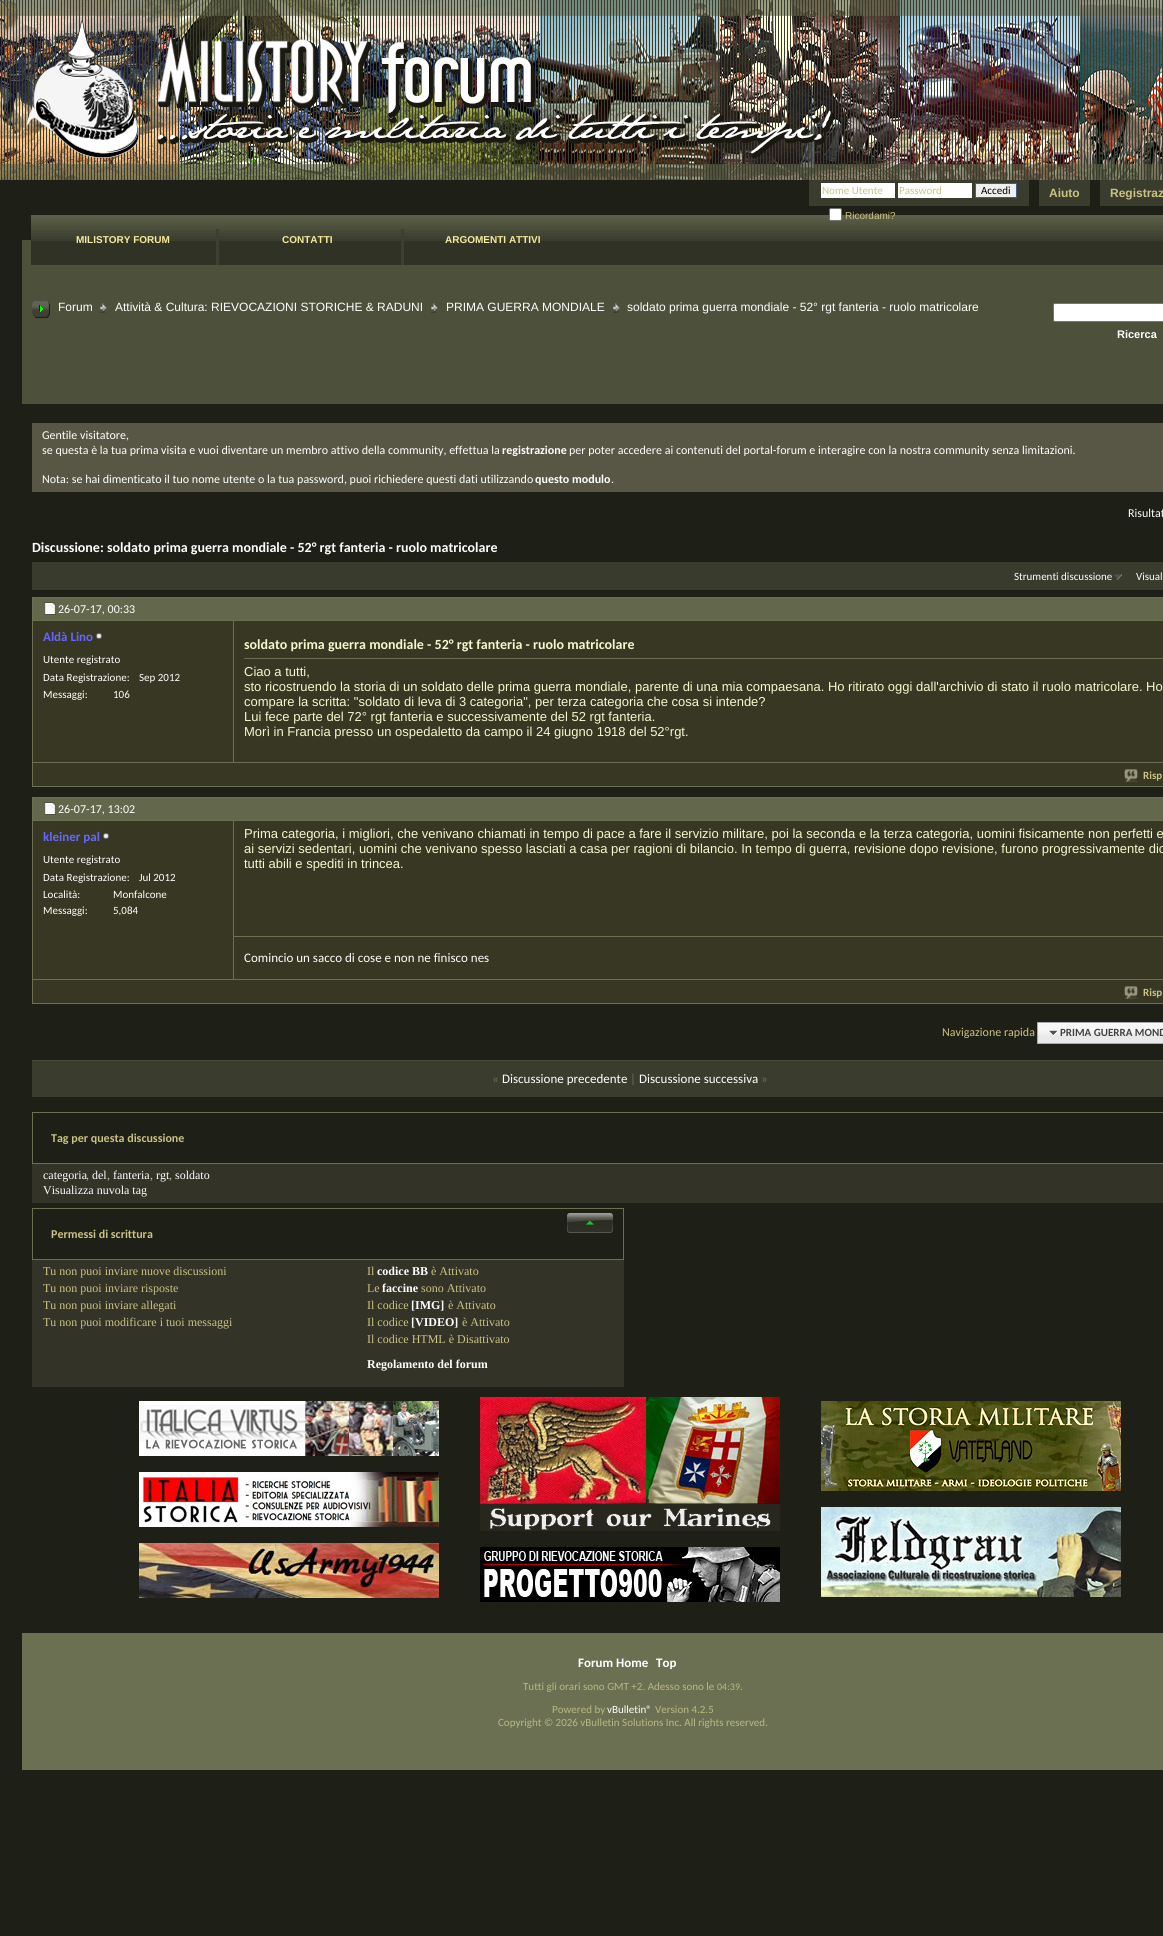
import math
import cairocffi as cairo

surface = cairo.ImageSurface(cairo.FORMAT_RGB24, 1163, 1936)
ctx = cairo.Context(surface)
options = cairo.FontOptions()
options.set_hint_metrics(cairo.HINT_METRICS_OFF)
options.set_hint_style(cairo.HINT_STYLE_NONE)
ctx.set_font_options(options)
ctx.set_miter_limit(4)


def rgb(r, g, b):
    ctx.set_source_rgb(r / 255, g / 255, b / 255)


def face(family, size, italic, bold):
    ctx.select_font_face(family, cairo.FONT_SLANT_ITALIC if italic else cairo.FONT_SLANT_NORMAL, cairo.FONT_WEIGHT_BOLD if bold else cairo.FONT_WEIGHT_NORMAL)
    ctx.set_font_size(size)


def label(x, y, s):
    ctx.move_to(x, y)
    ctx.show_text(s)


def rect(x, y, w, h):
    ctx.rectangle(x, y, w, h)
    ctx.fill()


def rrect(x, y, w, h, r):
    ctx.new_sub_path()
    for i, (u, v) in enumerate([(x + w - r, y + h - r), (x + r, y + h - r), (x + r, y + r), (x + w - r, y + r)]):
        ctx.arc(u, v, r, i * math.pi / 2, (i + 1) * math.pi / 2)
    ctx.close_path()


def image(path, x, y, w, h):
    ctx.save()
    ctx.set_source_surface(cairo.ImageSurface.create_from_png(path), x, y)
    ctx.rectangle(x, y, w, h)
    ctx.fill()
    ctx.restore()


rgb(30, 31, 22)
ctx.paint()
image('image0.png', 0, 0, 1163, 180)
rgb(58, 60, 46)
rect(809, 180, 220, 26)
rgb(255, 255, 255)
rect(821, 183, 74, 15)
face('Carlito', 11, 0, 0)
rgb(203, 194, 131)
label(822, 194, 'Nome Utente')
rgb(255, 255, 255)
rect(898, 183, 74, 15)
rgb(203, 194, 131)
label(899, 194, 'Password')
rgb(239, 239, 239)
ctx.rectangle(975.5, 183.5, 41, 14)
ctx.fill_preserve()
rgb(65, 93, 141)
ctx.set_line_width(1)
ctx.stroke()
rgb(0, 0, 0)
label(981, 194, 'Accedi')
rgb(77, 80, 59)
rect(22, 240, 1141, 164)
image('image1.png', 31, 215, 1132, 26)
rgb(255, 255, 255)
rrect(829.5, 208.5, 12, 12, 1.5)
ctx.fill_preserve()
rgb(118, 118, 118)
ctx.stroke()
face('Liberation Sans', 10, 0, 0)
rgb(203, 194, 131)
label(845, 219, 'Ricordami?')
rgb(58, 60, 46)
rect(1039, 180, 51, 26)
face('Liberation Sans', 12, 0, 1)
rgb(203, 194, 131)
label(1049, 197, 'Aiuto')
rgb(58, 60, 46)
rect(1100, 180, 63, 26)
rgb(203, 194, 131)
label(1110, 197, 'Registraz')
rgb(48, 50, 38)
rect(31, 241, 1132, 24)
image('image2.png', 48, 215, 150, 26)
face('Liberation Sans', 10, 0, 1)
rgb(245, 234, 158)
label(76, 243, 'MILISTORY FORUM')
rgb(61, 63, 48)
rect(216, 229, 3, 36)
image('image2.png', 233, 215, 150, 26)
rgb(245, 234, 158)
label(282, 243, 'CONTATTI')
rgb(61, 63, 48)
rect(401, 229, 3, 36)
image('image2.png', 418, 215, 150, 26)
rgb(245, 234, 158)
label(445, 243, 'ARGOMENTI ATTIVI')
image('image3.png', 32, 301, 18, 17)
image('image4.png', 100, 303, 7, 10)
face('Liberation Sans', 12, 0, 0)
rgb(255, 255, 255)
label(58, 311, 'Forum')
image('image4.png', 431, 303, 7, 10)
label(115, 311, 'Attività & Cultura: RIEVOCAZIONI STORICHE & RADUNI')
image('image4.png', 613, 303, 7, 10)
label(446, 311, 'PRIMA GUERRA MONDIALE')
label(627, 311, 'soldato prima guerra mondiale - 52° rgt fanteria - ruolo matricolare')
rrect(1053.5, 303.5, 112, 18, 1.5)
ctx.fill_preserve()
rgb(118, 118, 118)
ctx.stroke()
face('Liberation Sans', 11, 0, 1)
rgb(255, 255, 255)
label(1117, 338, 'Ricerca')
rgb(88, 87, 69)
rect(32, 423, 1131, 69)
face('Carlito', 12, 0, 0)
rgb(255, 255, 255)
label(42, 439, 'Gentile visitatore,')
label(42, 454, 'se questa è la tua prima visita e vuoi diventare un membro attivo della community, effettua la')
face('Carlito', 12, 0, 1)
label(502, 454, 'registrazione')
face('Carlito', 12, 0, 0)
label(569, 454, 'per poter accedere ai contenuti del portal-forum e interagire con la nostra community senza limitazioni.')
label(42, 483, 'Nota: se hai dimenticato il tuo nome utente o la tua password, puoi richiedere questi dati utilizzando')
face('Carlito', 12, 0, 1)
label(535, 483, 'questo modulo')
face('Carlito', 12, 0, 0)
label(611, 483, '.')
label(1128, 517, 'Risultat')
face('Carlito', 14, 0, 1)
label(32, 552, 'Discussione: soldato prima guerra mondiale - 52° rgt fanteria - ruolo matricolare')
rgb(57, 59, 45)
rect(32, 562, 1131, 28)
image('image5.png', 1113, 574, 9, 6)
face('Carlito', 11, 0, 0)
rgb(255, 255, 255)
label(1014, 580, 'Strumenti discussione')
label(1136, 580, 'Visual')
ctx.rectangle(32.5, 597.5, 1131, 189)
rgb(108, 112, 83)
ctx.stroke()
rgb(99, 103, 76)
ctx.rectangle(32.5, 597.5, 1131, 23)
ctx.fill_preserve()
rgb(108, 112, 83)
ctx.stroke()
image('image6.png', 44, 602, 12, 13)
face('Carlito', 12, 0, 0)
rgb(255, 255, 255)
label(58, 613, '26-07-17, 00:33')
rgb(55, 55, 35)
rect(33, 621, 1130, 141)
face('Carlito', 13, 0, 1)
rgb(102, 102, 255)
label(43, 641, 'Aldà Lino')
image('image7.png', 96, 633, 6, 6)
face('Carlito', 11, 0, 0)
rgb(255, 255, 255)
label(43, 663, 'Utente registrato')
label(43, 681, 'Data Registrazione:')
label(139, 681, 'Sep 2012')
label(43, 698, 'Messaggi:')
label(113, 698, '106')
rgb(108, 112, 83)
rect(233, 621, 1, 141)
rect(244, 658, 919, 1)
face('Carlito', 14, 0, 1)
rgb(245, 248, 205)
label(244, 649, 'soldato prima guerra mondiale - 52° rgt fanteria - ruolo matricolare')
face('Liberation Sans', 13, 0, 0)
label(244, 676, 'Ciao a tutti,')
label(244, 691, 'sto ricostruendo la storia di un soldato delle prima guerra mondiale, parente di una mia compaesana. Ho ritirato oggi dall\'archivio di stato il ruolo matricolare. Ho')
label(244, 706, 'compare la scritta: "soldato di leva di 3 categoria", per terza categoria che cosa si intende?')
label(244, 721, 'Lui fece parte del 72° rgt fanteria e successivamente del 52 rgt fanteria.')
label(244, 736, 'Morì in Francia presso un ospedaletto da campo il 24 giugno 1918 del 52°rgt.')
rgb(55, 55, 35)
rect(33, 763, 1130, 23)
rgb(108, 112, 83)
rect(33, 762, 1130, 1)
image('image8.png', 1124, 769, 14, 13)
face('Carlito', 11, 0, 1)
rgb(203, 194, 131)
label(1143, 779, 'Risp')
ctx.rectangle(32.5, 797.5, 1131, 206)
rgb(108, 112, 83)
ctx.stroke()
rgb(99, 103, 76)
ctx.rectangle(32.5, 797.5, 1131, 23)
ctx.fill_preserve()
rgb(108, 112, 83)
ctx.stroke()
image('image6.png', 44, 802, 12, 13)
face('Carlito', 12, 0, 0)
rgb(255, 255, 255)
label(58, 813, '26-07-17, 13:02')
rgb(55, 55, 35)
rect(33, 821, 1130, 158)
face('Carlito', 13, 0, 1)
rgb(102, 102, 255)
label(43, 841, 'kleiner pal')
image('image7.png', 103, 833, 6, 6)
face('Carlito', 11, 0, 0)
rgb(255, 255, 255)
label(43, 863, 'Utente registrato')
label(43, 881, 'Data Registrazione:')
label(139, 881, 'Jul 2012')
label(43, 898, 'Località:')
label(113, 898, 'Monfalcone')
label(43, 914, 'Messaggi:')
label(113, 914, '5,084')
rgb(108, 112, 83)
rect(233, 821, 1, 158)
face('Liberation Sans', 13, 0, 0)
rgb(245, 248, 205)
label(244, 838, 'Prima categoria, i migliori, che venivano chiamati in tempo di pace a fare il servizio militare, poi la seconda e la terza categoria, uomini fisicamente non perfetti e')
label(244, 853, 'ai servizi sedentari, uomini che venivano spesso lasciati a casa per ragioni di bilancio. In tempo di guerra, revisione dopo revisione, furono progressivamente dic')
label(244, 868, 'tutti abili e spediti in trincea.')
rgb(108, 112, 83)
rect(234, 936, 929, 1)
face('Carlito', 13, 0, 0)
rgb(255, 255, 255)
label(244, 962, 'Comincio un sacco di cose e non ne finisco nes')
rgb(55, 55, 35)
rect(33, 980, 1130, 23)
rgb(108, 112, 83)
rect(33, 979, 1130, 1)
image('image8.png', 1124, 986, 14, 13)
face('Carlito', 11, 0, 1)
rgb(203, 194, 131)
label(1143, 996, 'Risp')
face('Carlito', 12, 0, 0)
label(942, 1036, 'Navigazione rapida')
rgb(233, 233, 233)
rect(1038, 1023, 125, 20)
image('image9.png', 1038, 1023, 125, 12)
ctx.rectangle(1037.5, 1022.5, 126, 21)
rgb(168, 168, 168)
ctx.stroke()
image('image10.png', 1049, 1030, 9, 6)
face('Carlito', 11, 0, 1)
rgb(66, 66, 66)
label(1060, 1036, 'PRIMA GUERRA MOND')
rgb(58, 60, 46)
rect(32, 1061, 1131, 36)
rgb(72, 71, 58)
rect(32, 1060, 1131, 1)
face('Carlito', 13, 0, 0)
rgb(108, 112, 83)
label(492, 1083, '«')
rgb(255, 255, 255)
label(502, 1083, 'Discussione precedente')
rgb(108, 112, 83)
label(630, 1083, '|')
rgb(255, 255, 255)
label(639, 1083, 'Discussione successiva')
rgb(108, 112, 83)
label(761, 1083, '»')
ctx.rectangle(32.5, 1112.5, 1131, 51)
ctx.stroke()
face('Carlito', 12, 0, 1)
rgb(203, 194, 131)
label(51, 1142, 'Tag per questa discussione')
rgb(51, 51, 40)
rect(32, 1164, 1131, 39)
face('Liberation Serif', 12, 0, 0)
rgb(255, 255, 255)
label(43, 1179, 'categoria')
rgb(203, 194, 131)
label(86, 1179, ',')
rgb(255, 255, 255)
label(92, 1179, 'del')
rgb(203, 194, 131)
label(107, 1179, ',')
rgb(255, 255, 255)
label(113, 1179, 'fanteria')
rgb(203, 194, 131)
label(150, 1179, ',')
rgb(255, 255, 255)
label(156, 1179, 'rgt')
rgb(203, 194, 131)
label(169, 1179, ',')
rgb(255, 255, 255)
label(175, 1179, 'soldato')
label(43, 1194, 'Visualizza nuvola tag')
ctx.rectangle(32.5, 1208.5, 591, 51)
rgb(108, 112, 83)
ctx.stroke()
image('image11.png', 567, 1213, 46, 20)
face('Carlito', 12, 0, 1)
rgb(203, 194, 131)
label(51, 1238, 'Permessi di scrittura')
rgb(51, 51, 40)
rect(32, 1260, 592, 127)
face('Liberation Serif', 12, 0, 0)
rgb(203, 194, 131)
label(43, 1275, 'Tu non puoi inviare nuove discussioni')
label(43, 1292, 'Tu non puoi inviare risposte')
label(43, 1309, 'Tu non puoi inviare allegati')
label(43, 1326, 'Tu non puoi modificare i tuoi messaggi')
label(367, 1275, 'Il')
face('Liberation Serif', 12, 0, 1)
rgb(255, 255, 255)
label(377, 1275, 'codice BB')
face('Liberation Serif', 12, 0, 0)
rgb(203, 194, 131)
label(431, 1275, 'è Attivato')
label(367, 1292, 'Le')
face('Liberation Serif', 12, 0, 1)
rgb(255, 255, 255)
label(382, 1292, 'faccine')
face('Liberation Serif', 12, 0, 0)
rgb(203, 194, 131)
label(421, 1292, 'sono Attivato')
label(367, 1309, 'Il codice')
face('Liberation Serif', 12, 0, 1)
rgb(255, 255, 255)
label(411, 1309, '[IMG]')
face('Liberation Serif', 12, 0, 0)
rgb(203, 194, 131)
label(448, 1309, 'è Attivato')
label(367, 1326, 'Il codice')
face('Liberation Serif', 12, 0, 1)
rgb(255, 255, 255)
label(411, 1326, '[VIDEO]')
face('Liberation Serif', 12, 0, 0)
rgb(203, 194, 131)
label(462, 1326, 'è Attivato')
label(367, 1343, 'Il codice HTML è Disattivato')
face('Liberation Serif', 12, 0, 1)
rgb(255, 255, 255)
label(367, 1368, 'Regolamento del forum')
image('image12.png', 139, 1401, 300, 55)
image('image13.png', 139, 1472, 300, 55)
image('image14.png', 139, 1543, 300, 55)
image('image15.png', 480, 1397, 300, 134)
image('image16.png', 480, 1547, 300, 55)
image('image17.png', 821, 1401, 300, 90)
image('image18.png', 821, 1507, 300, 90)
rgb(108, 112, 83)
rect(22, 1633, 1141, 137)
face('Carlito', 13, 0, 1)
rgb(255, 255, 255)
label(578, 1667, 'Forum Home')
label(656, 1667, 'Top')
face('Carlito', 11, 0, 0)
rgb(184, 184, 131)
label(523, 1690, 'Tutti gli orari sono GMT +2. Adesso sono le')
face('Carlito', 10, 0, 0)
label(717, 1690, '04:39')
face('Carlito', 11, 0, 0)
label(740, 1690, '.')
label(552, 1713, 'Powered by')
rgb(255, 255, 255)
label(607, 1713, 'vBulletin®')
rgb(184, 184, 131)
label(655, 1713, 'Version 4.2.5')
label(498, 1726, 'Copyright © 2026 vBulletin Solutions Inc. All rights reserved.')
surface.write_to_png('render.png')
